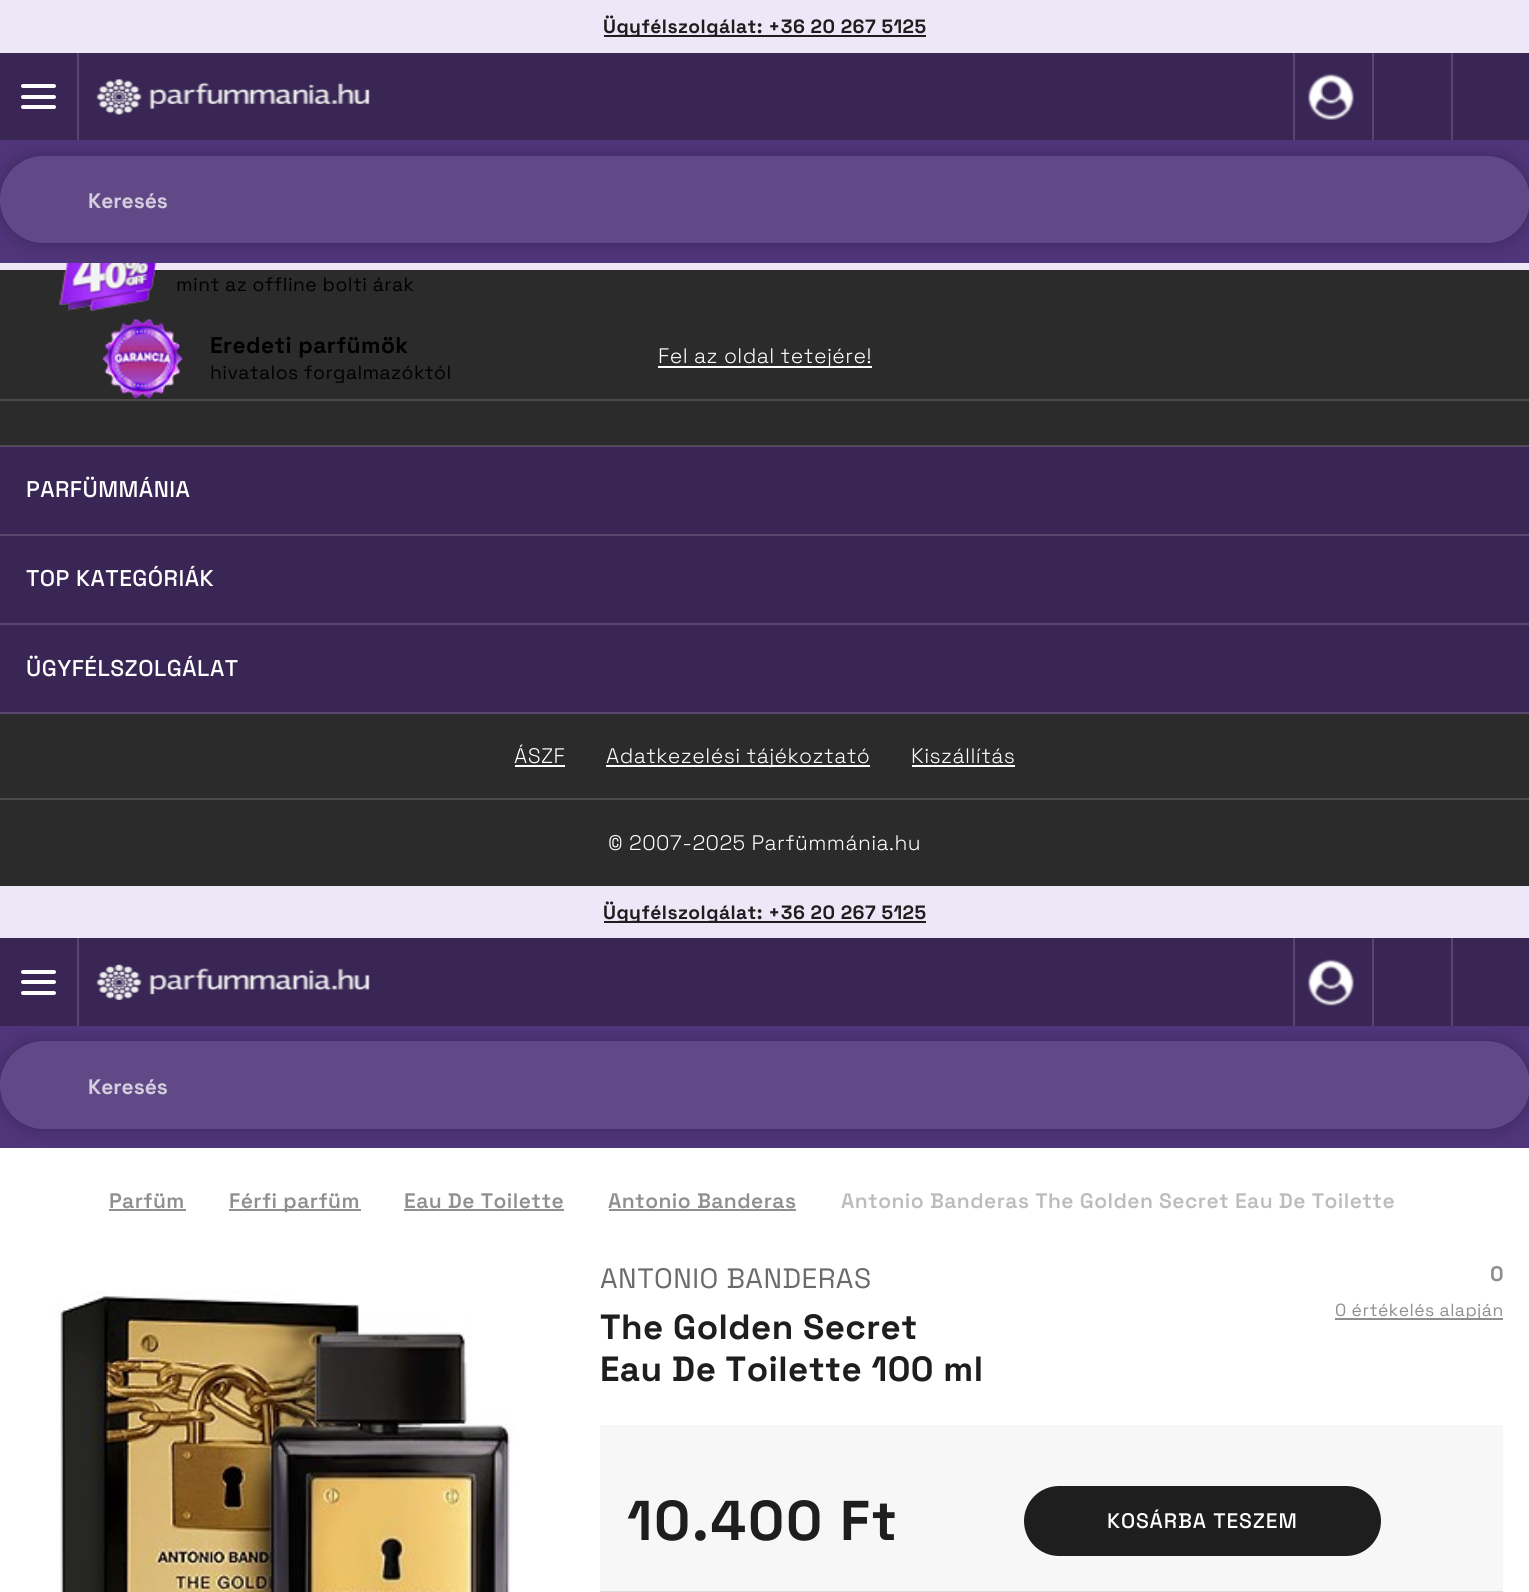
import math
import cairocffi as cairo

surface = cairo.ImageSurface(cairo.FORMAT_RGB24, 1529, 1592)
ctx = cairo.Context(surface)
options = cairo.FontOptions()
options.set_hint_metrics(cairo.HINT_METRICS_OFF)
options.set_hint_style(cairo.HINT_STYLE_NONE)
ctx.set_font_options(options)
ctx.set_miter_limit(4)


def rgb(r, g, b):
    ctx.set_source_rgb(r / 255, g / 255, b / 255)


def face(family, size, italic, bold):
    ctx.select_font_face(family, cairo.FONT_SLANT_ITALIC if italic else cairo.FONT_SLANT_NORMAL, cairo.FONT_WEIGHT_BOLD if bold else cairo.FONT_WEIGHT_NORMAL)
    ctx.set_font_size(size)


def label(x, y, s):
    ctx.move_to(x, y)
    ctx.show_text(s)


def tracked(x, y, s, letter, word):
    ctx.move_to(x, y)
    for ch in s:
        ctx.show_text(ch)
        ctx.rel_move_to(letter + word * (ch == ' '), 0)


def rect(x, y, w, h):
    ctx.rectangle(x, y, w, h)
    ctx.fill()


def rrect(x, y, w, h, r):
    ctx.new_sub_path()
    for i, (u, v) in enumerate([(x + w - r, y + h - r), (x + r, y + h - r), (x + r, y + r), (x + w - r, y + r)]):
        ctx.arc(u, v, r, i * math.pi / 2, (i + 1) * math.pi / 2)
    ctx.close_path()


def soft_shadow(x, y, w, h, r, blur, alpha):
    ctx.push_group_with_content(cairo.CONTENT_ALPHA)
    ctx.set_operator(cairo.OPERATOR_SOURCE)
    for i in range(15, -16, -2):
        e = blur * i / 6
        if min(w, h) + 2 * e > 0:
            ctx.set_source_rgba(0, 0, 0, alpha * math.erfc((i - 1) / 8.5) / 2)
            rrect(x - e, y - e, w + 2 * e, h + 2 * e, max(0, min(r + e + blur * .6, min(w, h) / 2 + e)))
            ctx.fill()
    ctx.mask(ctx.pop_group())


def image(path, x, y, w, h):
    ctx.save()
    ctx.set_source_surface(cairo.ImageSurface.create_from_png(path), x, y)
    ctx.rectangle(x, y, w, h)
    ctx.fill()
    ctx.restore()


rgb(238, 231, 248)
ctx.paint()
rgb(30, 30, 30)
rect(604, 35, 322, 2)
face('Space Grotesk', 19.25, 0, 1)
tracked(603, 33, 'Ügyfélszolgálat: +36 20 267 5125', 0.45, 0)
rgb(57, 38, 85)
rect(0, 53, 1529, 87)
rgb(87, 71, 111)
rect(77, 53, 2, 87)
rgb(255, 255, 255)
rrect(21, 84, 35, 4, 2)
ctx.fill()
rrect(21, 95, 35, 4, 2)
ctx.fill()
rrect(21, 105, 35, 4, 2)
ctx.fill()
image('image0.png', 96, 79, 274, 36)
rgb(87, 71, 111)
rect(1293, 53, 2, 87)
image('image1.png', 1308, 74, 46, 46)
rect(1372, 53, 2, 87)
rect(1451, 53, 2, 87)
rgb(80, 53, 122)
rect(0, 140, 1529, 123)
rgb(43, 43, 43)
rect(0, 270, 1529, 175)
image('image2.png', 59, 263, 98, 48)
ctx.save()
ctx.set_fill_rule(cairo.FILL_RULE_EVEN_ODD)
ctx.new_path()
ctx.move_to(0, 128)
ctx.line_to(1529, 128)
ctx.line_to(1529, 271)
ctx.line_to(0, 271)
ctx.close_path()
ctx.move_to(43.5, 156)
ctx.line_to(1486.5, 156)
ctx.curve_to(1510.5, 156, 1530, 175.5, 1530, 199.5)
ctx.curve_to(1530, 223.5, 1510.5, 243, 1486.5, 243)
ctx.line_to(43.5, 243)
ctx.curve_to(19.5, 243, 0, 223.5, 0, 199.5)
ctx.curve_to(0, 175.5, 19.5, 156, 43.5, 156)
ctx.close_path()
ctx.clip()
rgb(0, 0, 0)
soft_shadow(0, 156, 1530, 87, 43.5, 9, 0.25)
ctx.restore()
ctx.set_source_rgba(1, 1, 1, 0.1)
rrect(0, 156, 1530, 87, 43.5)
ctx.fill()
face('Space Grotesk', 21, 0, 1)
rgb(211, 205, 222)
label(88, 208, 'Keresés')
face('Space Grotesk', 19.25, 0, 0)
rgb(0, 0, 0)
tracked(176, 291, 'mint az offline bolti árak', 0.45, 0)
rgb(75, 75, 75)
rect(0, 399, 1529, 2)
image('image3.png', 102, 318, 82, 82)
face('Space Grotesk', 22.75, 0, 1)
rgb(0, 0, 0)
tracked(210, 353, 'Eredeti parfümök', 0.45, 0)
face('Space Grotesk', 19.25, 0, 0)
tracked(210, 379, 'hivatalos forgalmazóktól', 0.45, 0)
rgb(57, 38, 85)
rect(0, 447, 1529, 265)
rgb(87, 71, 111)
rect(0, 446, 1529, 1)
rgb(75, 75, 75)
rect(0, 445, 1529, 1)
rgb(255, 255, 255)
rect(658, 366, 214, 2)
face('Space Grotesk Light', 21, 0, 0)
tracked(658, 363, 'Fel az oldal tetejére!', 0.45, 0)
rgb(87, 71, 111)
rect(0, 534, 1529, 2)
face('Space Grotesk Medium', 22.75, 0, 0)
rgb(255, 255, 255)
tracked(26, 497, 'PARFÜMMÁNIA', 0.45, 0)
rgb(87, 71, 111)
rect(0, 623, 1529, 2)
rgb(255, 255, 255)
tracked(26, 586, 'TOP KATEGÓRIÁK', 0.45, 0)
rgb(87, 71, 111)
rect(0, 712, 1529, 2)
rgb(255, 255, 255)
tracked(26, 676, 'ÜGYFÉLSZOLGÁLAT', 0.45, 0)
rgb(43, 43, 43)
rect(0, 714, 1529, 172)
face('Space Grotesk Light', 21, 0, 0)
rgb(255, 255, 255)
tracked(514, 763, 'ÁSZF', 0.45, 0)
rect(515, 765, 50, 2)
rect(606, 765, 264, 2)
tracked(606, 763, 'Adatkezelési tájékoztató', 0.45, 0)
tracked(911, 763, 'Kiszállítás', 0.45, 0)
rect(912, 765, 103, 2)
rgb(75, 75, 75)
rect(0, 798, 1529, 2)
rgb(255, 255, 255)
tracked(608, 850, '© 2007-2025 Parfümmánia.hu', 0.45, 0)
rgb(30, 30, 30)
rect(604, 921, 322, 2)
face('Space Grotesk', 19.25, 0, 1)
tracked(603, 919, 'Ügyfélszolgálat: +36 20 267 5125', 0.45, 0)
rgb(57, 38, 85)
rect(0, 938, 1529, 88)
rgb(87, 71, 111)
rect(77, 938, 2, 88)
rgb(255, 255, 255)
rrect(21, 970, 35, 4, 2)
ctx.fill()
rrect(21, 980, 35, 4, 2)
ctx.fill()
rrect(21, 991, 35, 4, 2)
ctx.fill()
image('image4.png', 96, 964, 274, 36)
rgb(87, 71, 111)
rect(1293, 938, 2, 88)
image('image5.png', 1307, 959, 47, 47)
rect(1372, 938, 2, 88)
rect(1451, 938, 2, 88)
rgb(80, 53, 122)
rect(0, 1026, 1529, 122)
rgb(255, 255, 255)
rect(0, 1148, 1529, 444)
ctx.save()
ctx.set_fill_rule(cairo.FILL_RULE_EVEN_ODD)
ctx.new_path()
ctx.move_to(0, 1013)
ctx.line_to(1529, 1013)
ctx.line_to(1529, 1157)
ctx.line_to(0, 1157)
ctx.close_path()
ctx.move_to(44, 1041)
ctx.line_to(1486, 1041)
ctx.curve_to(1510.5, 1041, 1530, 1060.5, 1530, 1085)
ctx.curve_to(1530, 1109.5, 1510.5, 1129, 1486, 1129)
ctx.line_to(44, 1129)
ctx.curve_to(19.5, 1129, 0, 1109.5, 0, 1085)
ctx.curve_to(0, 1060.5, 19.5, 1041, 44, 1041)
ctx.close_path()
ctx.clip()
rgb(0, 0, 0)
soft_shadow(0, 1041, 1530, 88, 44, 9, 0.25)
ctx.restore()
ctx.set_source_rgba(1, 1, 1, 0.1)
rrect(0, 1041, 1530, 88, 44)
ctx.fill()
face('Space Grotesk', 21, 0, 1)
rgb(211, 205, 222)
label(88, 1094, 'Keresés')
face('Space Grotesk SemiBold', 21, 0, 0)
rgb(143, 143, 143)
tracked(109, 1208, 'Parfüm', 0.45, 0)
rect(109, 1209, 77, 2)
rect(229, 1209, 132, 2)
tracked(229, 1208, 'Férfi parfüm', 0.45, 0)
tracked(404, 1208, 'Eau De Toilette', 0.45, 0)
rect(404, 1209, 160, 2)
tracked(608, 1208, 'Antonio Banderas', 0.45, 0)
rect(609, 1209, 187, 2)
rgb(188, 188, 188)
tracked(841, 1208, 'Antonio Banderas The Golden Secret Eau De Toilette', 0.45, 0)
image('image6.png', 55, 1290, 458, 302)
face('Space Grotesk', 28, 0, 0)
rgb(107, 107, 107)
tracked(600, 1288, 'ANTONIO BANDERAS', 0.45, 0)
face('Space Grotesk', 35, 0, 1)
rgb(30, 30, 30)
tracked(600, 1339, 'The Golden Secret', 0.45, 0)
tracked(600, 1381, 'Eau De Toilette 100 ml', 0.45, 0)
face('Space Grotesk', 21, 0, 1)
rgb(143, 143, 143)
label(1490, 1281, '0')
rect(1335, 1318, 168, 2)
face('Space Grotesk', 17.5, 0, 0)
tracked(1335, 1316, '0 értékelés alapján', 0.45, 0)
rgb(248, 247, 247)
rect(600, 1425, 903, 166)
face('Space Grotesk', 56, 0, 1)
rgb(30, 30, 30)
tracked(627, 1540, '10.400 Ft', 1.75, 0)
rrect(1026, 1488, 353, 66, 33)
ctx.fill_preserve()
ctx.set_line_width(4)
ctx.stroke()
face('Space Grotesk Medium', 21, 0, 0)
rgb(255, 255, 255)
tracked(1107, 1528, 'KOSÁRBA TESZEM', 0.9, 0)
rgb(221, 221, 221)
rect(600, 1591, 903, 1)
surface.write_to_png('render.png')
